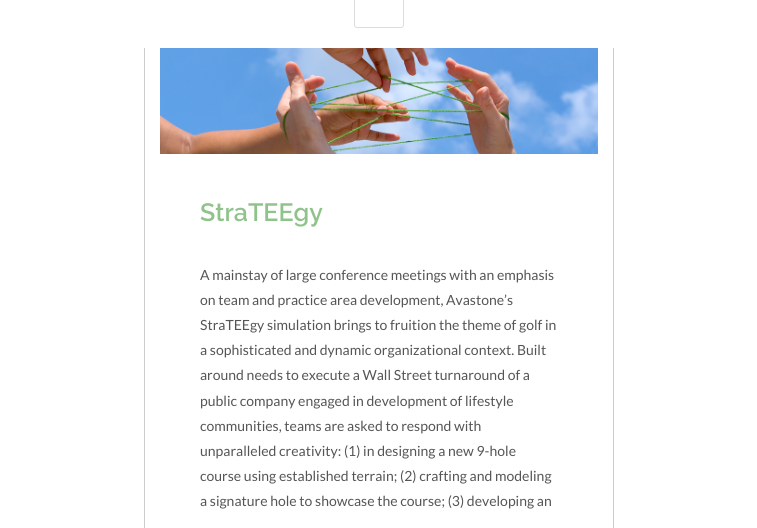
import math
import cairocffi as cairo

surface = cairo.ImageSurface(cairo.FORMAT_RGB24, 757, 528)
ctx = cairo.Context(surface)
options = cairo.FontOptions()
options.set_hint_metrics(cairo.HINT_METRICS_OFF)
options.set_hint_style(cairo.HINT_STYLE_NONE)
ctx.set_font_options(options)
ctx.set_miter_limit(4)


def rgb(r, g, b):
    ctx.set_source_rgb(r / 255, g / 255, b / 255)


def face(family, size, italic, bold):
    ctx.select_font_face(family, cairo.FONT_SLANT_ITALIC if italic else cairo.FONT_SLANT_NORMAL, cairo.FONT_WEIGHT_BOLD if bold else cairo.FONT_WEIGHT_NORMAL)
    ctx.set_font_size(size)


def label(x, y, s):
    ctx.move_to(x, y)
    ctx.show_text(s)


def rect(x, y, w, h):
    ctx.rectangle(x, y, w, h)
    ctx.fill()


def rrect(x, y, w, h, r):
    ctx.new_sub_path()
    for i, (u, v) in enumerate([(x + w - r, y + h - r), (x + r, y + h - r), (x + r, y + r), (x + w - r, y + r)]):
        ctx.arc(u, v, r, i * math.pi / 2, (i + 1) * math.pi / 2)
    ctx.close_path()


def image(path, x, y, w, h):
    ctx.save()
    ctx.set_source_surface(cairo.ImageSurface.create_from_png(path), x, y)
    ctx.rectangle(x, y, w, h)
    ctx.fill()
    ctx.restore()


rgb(255, 255, 255)
ctx.paint()
rrect(354.5, -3.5, 49, 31, 2.5)
rgb(221, 221, 221)
ctx.set_line_width(1)
ctx.stroke()
rgb(204, 204, 204)
rect(613, 48, 1, 480)
rect(144, 48, 1, 480)
image('image0.png', 160, 48, 438, 106)
face('Raleway SemiBold', 25, 0, 0)
rgb(144, 195, 139)
label(200, 221, 'StraTEEgy')
face('Lato', 14, 0, 0)
rgb(85, 85, 85)
label(200, 280, 'A mainstay of large conference meetings with an emphasis')
label(200, 305, 'on team and practice area development, Avastone’s')
label(200, 330, 'StraTEEgy simulation brings to fruition the theme of golf in')
label(200, 355, 'a sophisticated and dynamic organizational context. Built')
label(200, 380, 'around needs to execute a Wall Street turnaround of a')
label(200, 406, 'public company engaged in development of lifestyle')
label(200, 431, 'communities, teams are asked to respond with')
label(200, 456, 'unparalleled creativity: (1) in designing a new 9-hole')
label(200, 481, 'course using established terrain; (2) crafting and modeling')
label(200, 506, 'a signature hole to showcase the course; (3) developing an')
surface.write_to_png('render.png')
